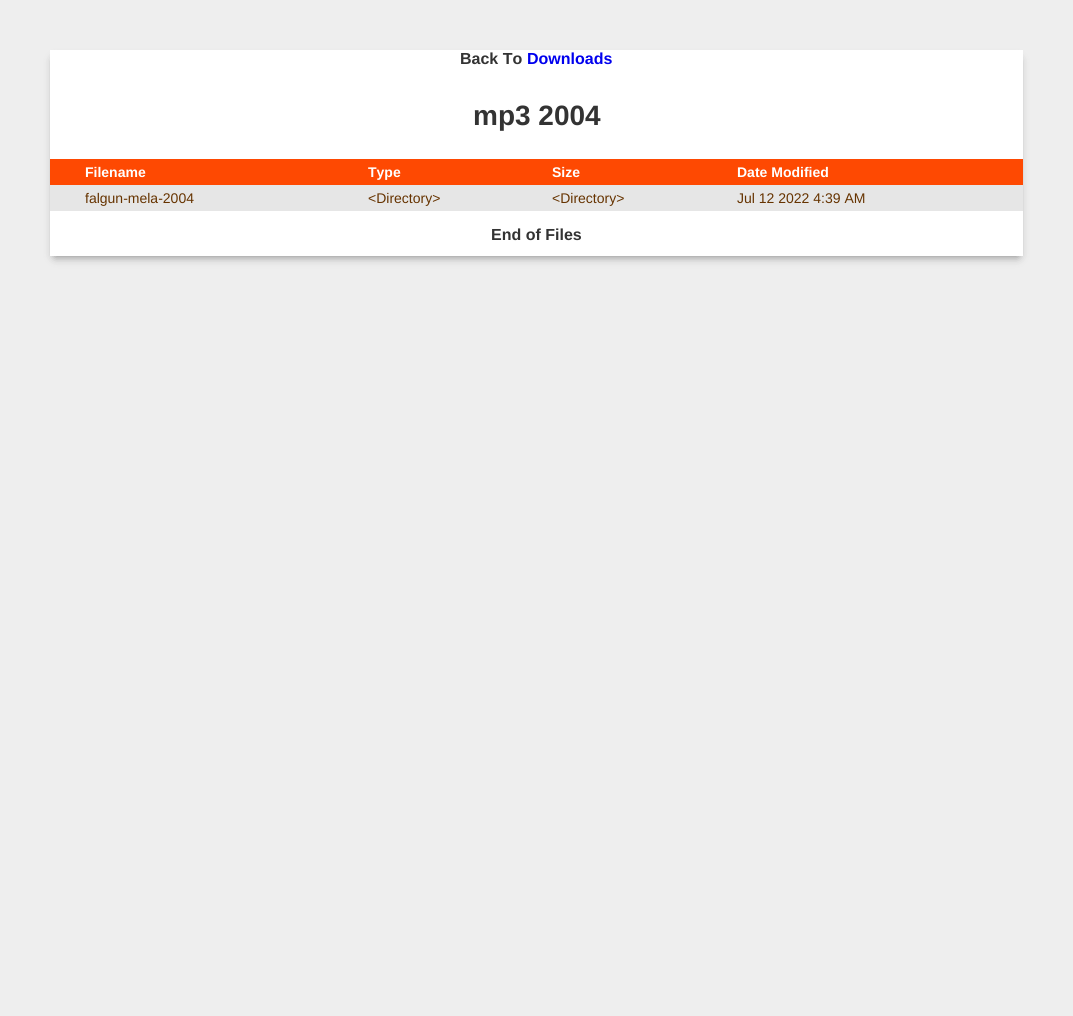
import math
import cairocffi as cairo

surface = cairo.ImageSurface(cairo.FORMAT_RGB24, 1073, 1016)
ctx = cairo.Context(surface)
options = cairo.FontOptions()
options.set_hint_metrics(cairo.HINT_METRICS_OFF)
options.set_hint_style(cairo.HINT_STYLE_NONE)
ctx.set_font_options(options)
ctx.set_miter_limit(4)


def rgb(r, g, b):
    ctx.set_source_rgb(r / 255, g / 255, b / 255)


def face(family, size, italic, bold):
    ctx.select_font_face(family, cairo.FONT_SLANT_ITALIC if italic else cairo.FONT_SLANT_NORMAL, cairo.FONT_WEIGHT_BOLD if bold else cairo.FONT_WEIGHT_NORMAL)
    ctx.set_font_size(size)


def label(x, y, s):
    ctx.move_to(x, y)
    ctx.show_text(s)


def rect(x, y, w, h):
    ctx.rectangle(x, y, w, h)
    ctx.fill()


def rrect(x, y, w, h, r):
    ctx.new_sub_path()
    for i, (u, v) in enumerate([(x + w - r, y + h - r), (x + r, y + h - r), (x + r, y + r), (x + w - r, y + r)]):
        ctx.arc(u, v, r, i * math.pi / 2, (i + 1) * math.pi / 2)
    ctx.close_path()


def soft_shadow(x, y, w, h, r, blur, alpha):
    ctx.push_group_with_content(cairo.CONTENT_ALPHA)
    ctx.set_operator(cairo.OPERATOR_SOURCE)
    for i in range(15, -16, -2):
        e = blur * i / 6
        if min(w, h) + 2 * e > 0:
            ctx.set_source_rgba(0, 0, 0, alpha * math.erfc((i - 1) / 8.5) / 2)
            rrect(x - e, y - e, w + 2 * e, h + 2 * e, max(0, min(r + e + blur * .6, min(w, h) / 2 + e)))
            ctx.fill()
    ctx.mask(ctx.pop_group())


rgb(238, 238, 238)
ctx.paint()
rgb(0, 0, 0)
soft_shadow(55, 60, 963, 196, 0, 5, 0.5)
rgb(255, 255, 255)
rect(50, 50, 973, 206)
face('Liberation Sans', 16, 0, 1)
rgb(51, 51, 51)
label(460, 64, 'Back To')
rgb(0, 0, 238)
label(527, 64, 'Downloads')
face('Liberation Sans', 28, 0, 1)
rgb(51, 51, 51)
label(473, 125, 'mp3 2004')
rgb(254, 73, 2)
rect(50, 159, 973, 26)
face('Liberation Sans', 14, 0, 1)
rgb(255, 255, 255)
label(85, 177, 'Filename')
label(368, 177, 'Type')
label(552, 177, 'Size')
label(737, 177, 'Date Modified')
rgb(230, 230, 230)
rect(50, 185, 973, 26)
face('Liberation Sans', 14, 0, 0)
rgb(102, 51, 0)
label(85, 203, 'falgun-mela-2004')
label(368, 203, '<Directory>')
label(552, 203, '<Directory>')
label(737, 203, 'Jul 12 2022 4:39 AM')
face('Liberation Sans', 16, 0, 1)
rgb(51, 51, 51)
label(491, 240, 'End of Files')
surface.write_to_png('render.png')
